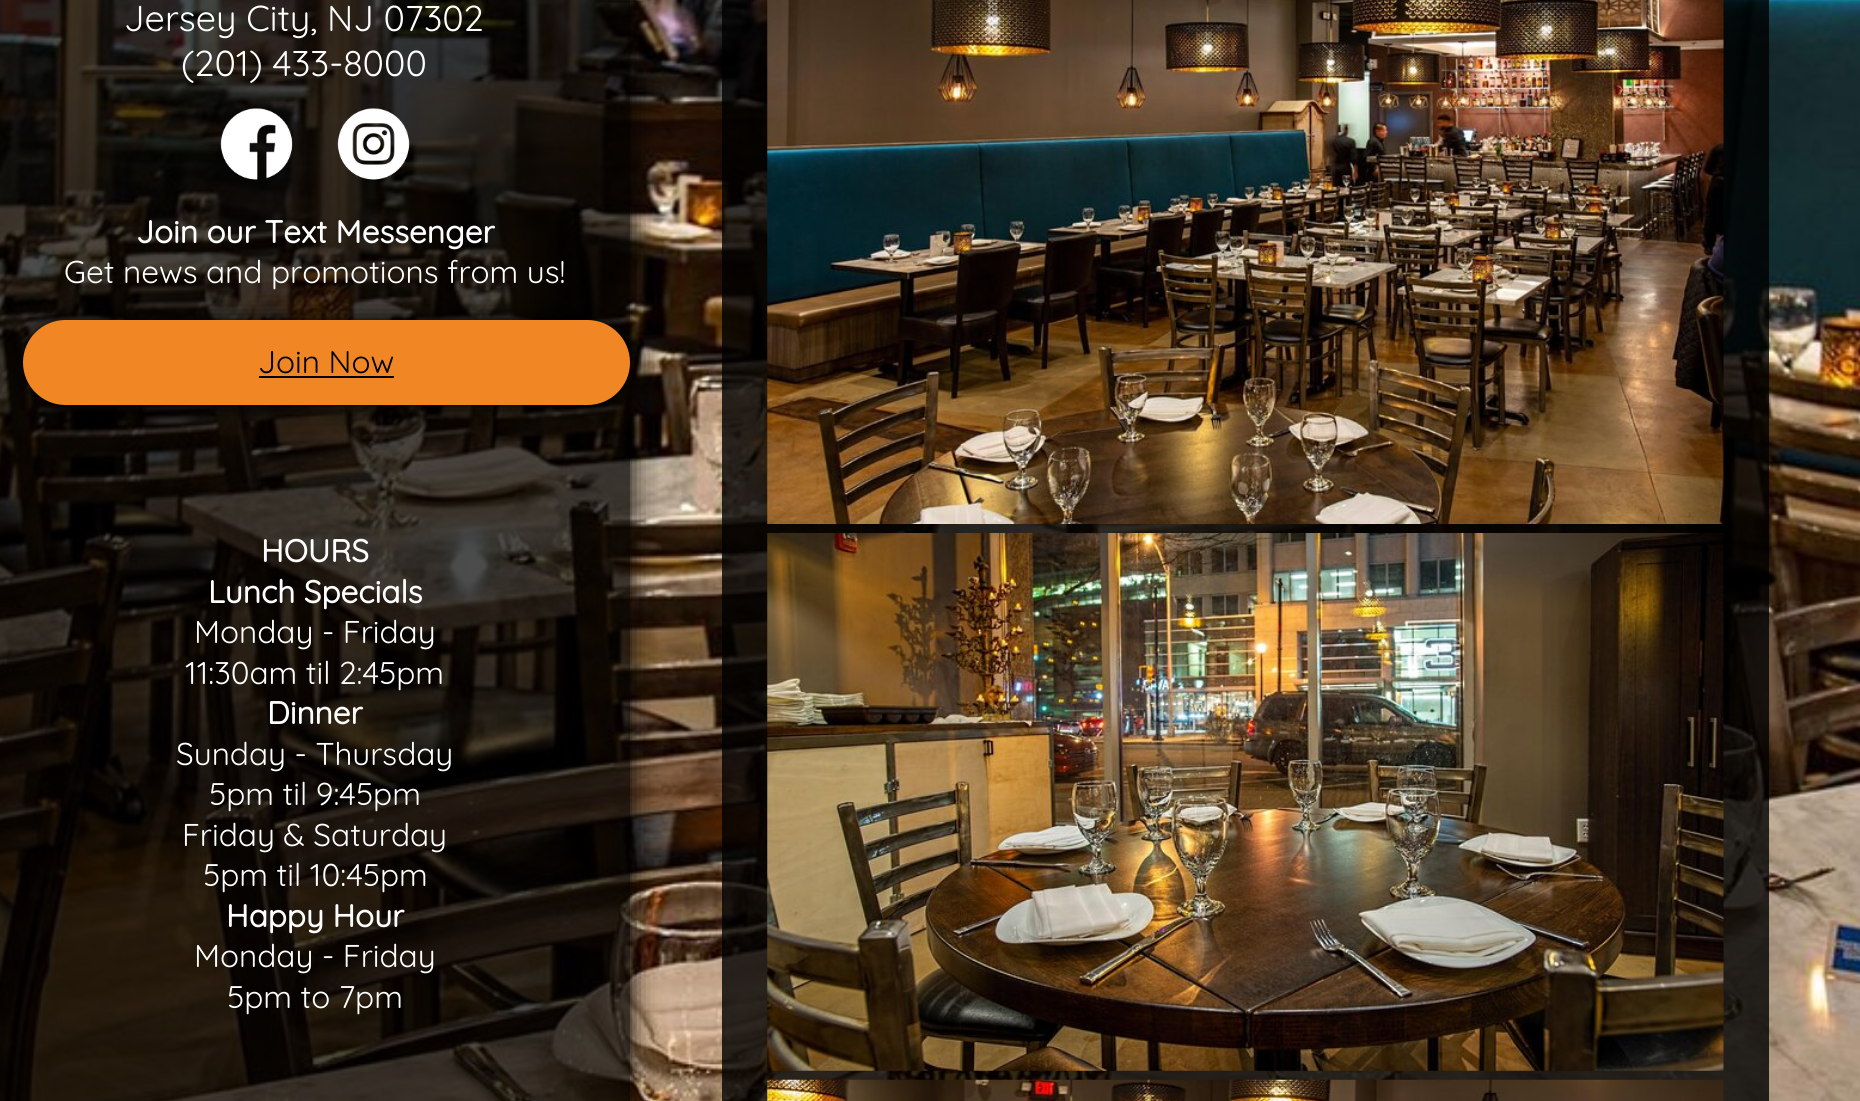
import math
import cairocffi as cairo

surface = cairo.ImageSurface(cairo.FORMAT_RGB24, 1860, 1101)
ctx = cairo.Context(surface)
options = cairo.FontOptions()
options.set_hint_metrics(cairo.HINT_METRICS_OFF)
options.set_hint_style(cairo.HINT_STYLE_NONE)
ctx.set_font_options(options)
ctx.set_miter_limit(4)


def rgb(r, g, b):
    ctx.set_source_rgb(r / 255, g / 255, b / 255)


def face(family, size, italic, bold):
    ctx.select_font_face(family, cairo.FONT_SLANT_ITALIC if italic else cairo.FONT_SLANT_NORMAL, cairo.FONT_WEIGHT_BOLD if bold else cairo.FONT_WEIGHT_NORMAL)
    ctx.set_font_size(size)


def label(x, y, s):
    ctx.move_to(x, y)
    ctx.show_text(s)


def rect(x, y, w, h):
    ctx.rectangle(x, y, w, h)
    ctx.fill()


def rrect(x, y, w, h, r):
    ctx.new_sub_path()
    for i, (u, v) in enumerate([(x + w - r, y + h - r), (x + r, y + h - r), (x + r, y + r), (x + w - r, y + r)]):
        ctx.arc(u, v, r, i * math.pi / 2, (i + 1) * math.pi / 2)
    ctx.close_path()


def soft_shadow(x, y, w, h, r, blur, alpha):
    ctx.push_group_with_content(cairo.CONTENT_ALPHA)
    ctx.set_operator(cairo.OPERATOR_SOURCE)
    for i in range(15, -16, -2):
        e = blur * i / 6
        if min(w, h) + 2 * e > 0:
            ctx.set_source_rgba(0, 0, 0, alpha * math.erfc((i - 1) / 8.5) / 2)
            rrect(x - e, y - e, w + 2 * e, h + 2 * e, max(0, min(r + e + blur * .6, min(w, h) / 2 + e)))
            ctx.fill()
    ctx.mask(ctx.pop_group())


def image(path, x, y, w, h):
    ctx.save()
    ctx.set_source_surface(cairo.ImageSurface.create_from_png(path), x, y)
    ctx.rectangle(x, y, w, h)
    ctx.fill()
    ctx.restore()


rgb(255, 255, 255)
ctx.paint()
image('image0.png', 0, 0, 1860, 1101)
ctx.save()
ctx.rectangle(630, 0, 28, 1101)
ctx.clip()
rgb(0, 0, 0)
soft_shadow(0, -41, 630, 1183, 0, 13.5, 1)
ctx.restore()
ctx.set_source_rgba(0, 0, 0, 0.7)
rect(0, 0, 630, 1101)
face('Quicksand Light', 36, 0, 0)
rgb(255, 255, 255)
label(124, 31, 'Jersey City, NJ 07302')
label(181, 76, '(201) 433-8000')
image('image1.png', 220, 108, 73, 72)
image('image2.png', 337, 108, 73, 72)
face('Quicksand', 31.5, 0, 1)
label(136, 243, 'Join our Text Messenger')
rgb(0, 0, 0)
soft_shadow(23, 320, 607, 85, 42.5, 13.5, 1)
face('Quicksand Light', 31.5, 0, 0)
rgb(255, 255, 255)
label(64, 283, 'Get news and promotions from us!')
rgb(240, 135, 36)
rrect(23, 320, 607, 85, 42.5)
ctx.fill()
rgb(0, 0, 0)
label(258, 373, 'Join Now')
rect(259, 376, 135, 2)
face('Quicksand', 31.5, 0, 1)
rgb(255, 255, 255)
label(261, 562, 'HOURS')
label(208, 603, 'Lunch Specials')
face('Quicksand Light', 31.5, 0, 0)
label(194, 643, 'Monday - Friday')
label(185, 684, '11:30am til 2:45pm')
face('Quicksand', 31.5, 0, 1)
label(267, 724, 'Dinner')
face('Quicksand Light', 31.5, 0, 0)
label(176, 765, 'Sunday - Thursday')
label(209, 805, '5pm til 9:45pm')
label(182, 846, 'Friday & Saturday')
label(203, 886, '5pm til 10:45pm')
face('Quicksand', 31.5, 0, 1)
label(226, 927, 'Happy Hour')
face('Quicksand Light', 31.5, 0, 0)
label(194, 967, 'Monday - Friday')
label(227, 1008, '5pm to 7pm')
ctx.set_source_rgba(0, 0, 0, 0.8)
rect(722, 0, 1047, 1101)
image('image3.png', 767, 0, 957, 524)
image('image4.png', 767, 533, 957, 538)
image('image5.png', 767, 1079, 957, 22)
surface.write_to_png('render.png')
